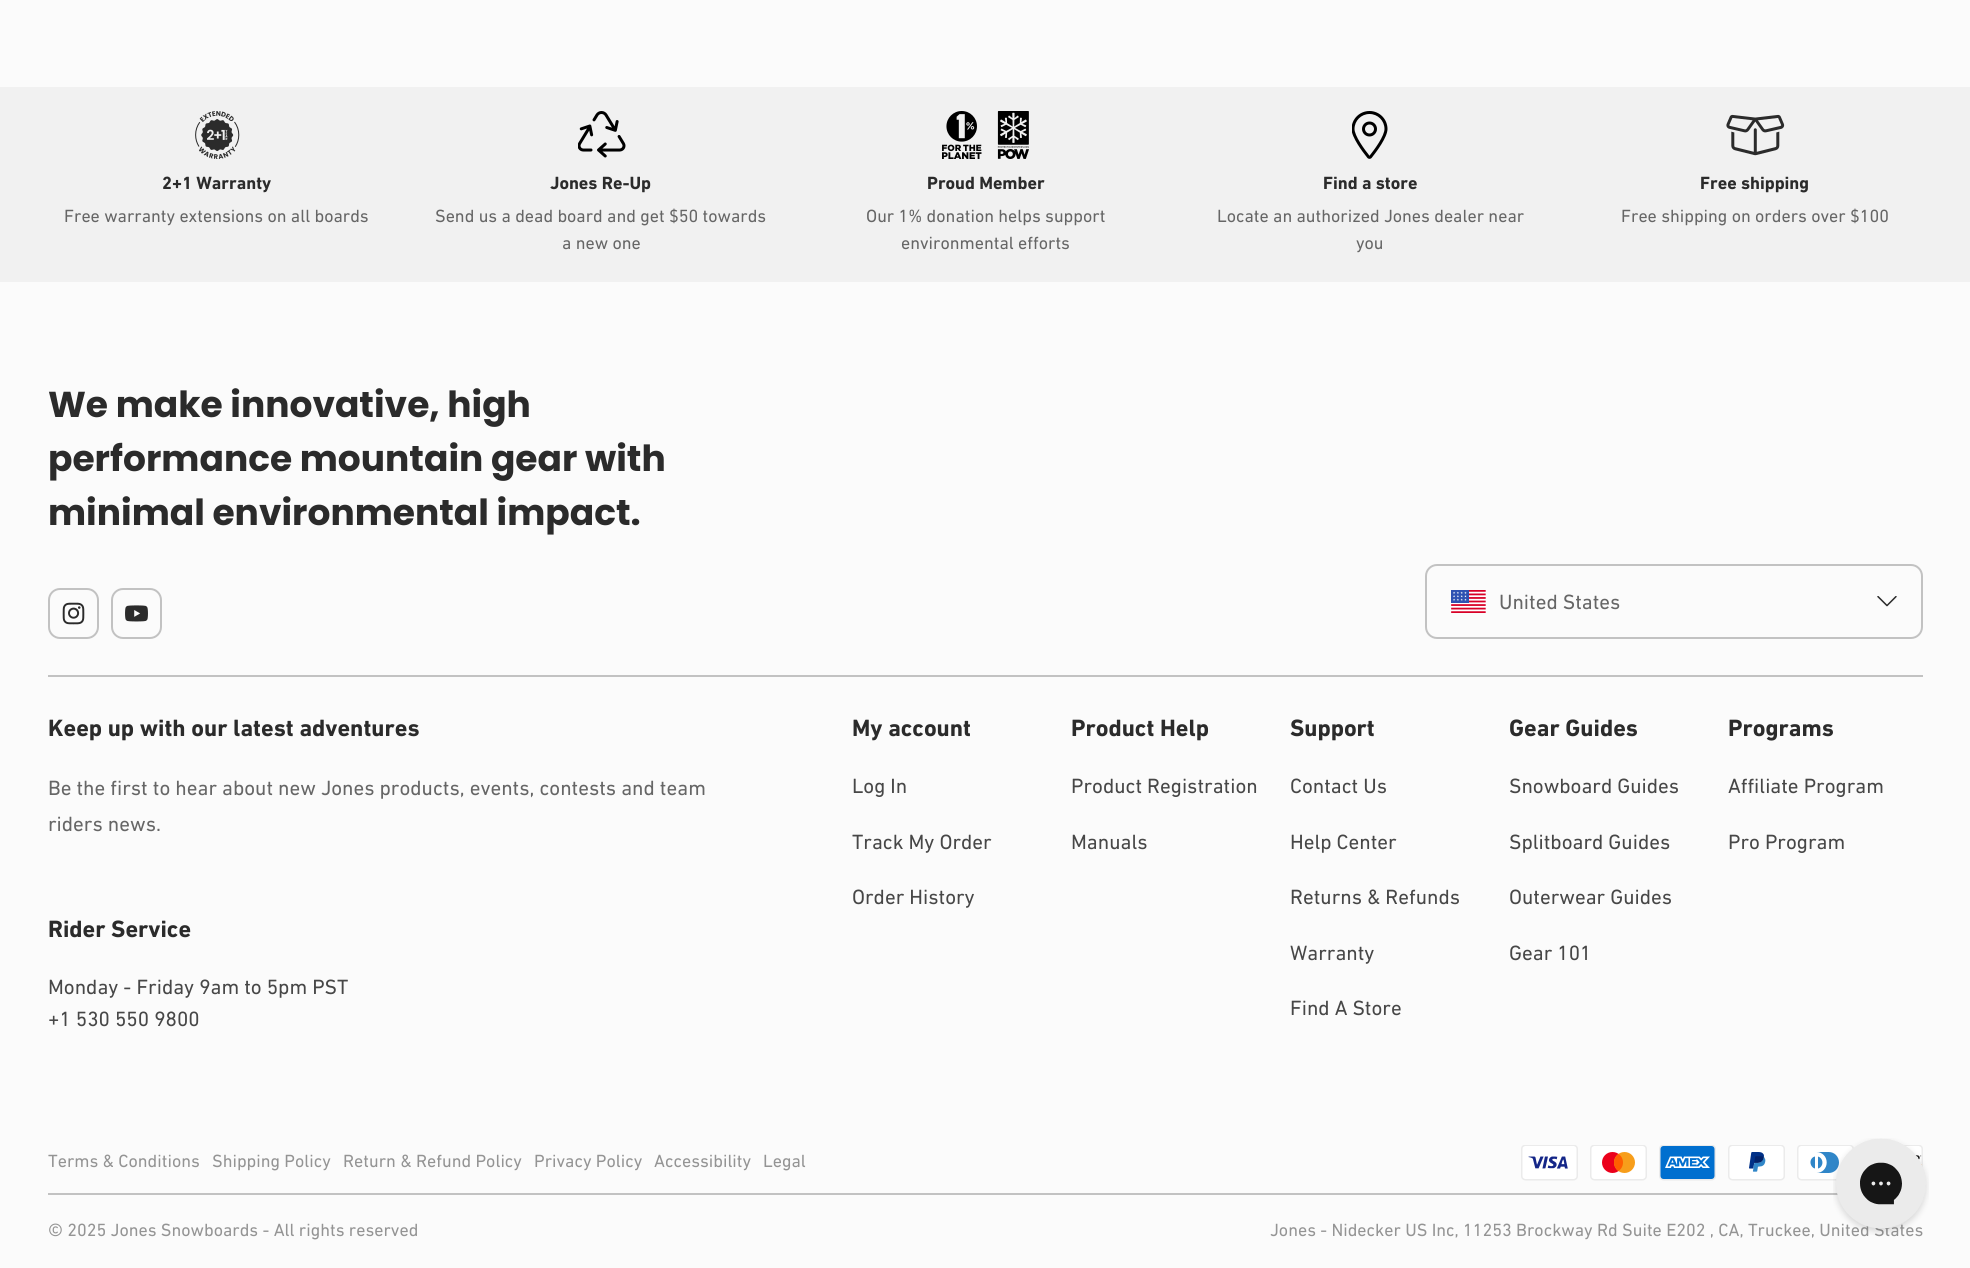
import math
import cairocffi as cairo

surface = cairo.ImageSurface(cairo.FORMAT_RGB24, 1970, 1268)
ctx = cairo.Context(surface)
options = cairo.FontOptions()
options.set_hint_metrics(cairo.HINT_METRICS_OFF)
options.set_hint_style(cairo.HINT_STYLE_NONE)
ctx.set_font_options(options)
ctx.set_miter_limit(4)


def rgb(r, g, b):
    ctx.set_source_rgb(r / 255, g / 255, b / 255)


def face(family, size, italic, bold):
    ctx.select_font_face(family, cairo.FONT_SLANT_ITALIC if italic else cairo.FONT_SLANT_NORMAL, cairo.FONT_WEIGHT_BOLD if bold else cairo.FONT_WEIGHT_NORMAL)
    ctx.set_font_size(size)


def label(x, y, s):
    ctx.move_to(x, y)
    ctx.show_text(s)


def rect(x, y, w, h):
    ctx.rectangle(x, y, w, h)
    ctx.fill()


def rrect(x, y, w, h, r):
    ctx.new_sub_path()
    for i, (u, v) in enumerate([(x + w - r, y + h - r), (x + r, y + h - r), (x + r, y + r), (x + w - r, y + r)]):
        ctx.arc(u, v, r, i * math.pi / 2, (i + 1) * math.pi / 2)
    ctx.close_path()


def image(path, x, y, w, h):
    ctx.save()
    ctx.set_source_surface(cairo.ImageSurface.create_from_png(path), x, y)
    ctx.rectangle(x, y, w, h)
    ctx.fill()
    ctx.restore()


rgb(251, 251, 251)
ctx.paint()
rgb(241, 241, 241)
rect(0, 87, 1970, 195)
image('image0.png', 195, 111, 45, 48)
face('DIN Next', 18, 0, 1)
rgb(43, 43, 43)
label(162, 189, '2+1 Warranty')
face('DIN Next', 18, 0, 0)
rgb(102, 102, 102)
label(64, 222, 'Free warranty extensions on all boards')
image('image1.png', 578, 111, 48, 47)
face('DIN Next', 18, 0, 1)
rgb(43, 43, 43)
label(550, 189, 'Jones Re-Up')
face('DIN Next', 18, 0, 0)
rgb(102, 102, 102)
label(435, 222, 'Send us a dead board and get $50 towards')
label(562, 249, 'a new one')
image('image2.png', 942, 111, 87, 48)
face('DIN Next', 18, 0, 1)
rgb(43, 43, 43)
label(927, 189, 'Proud Member')
face('DIN Next', 18, 0, 0)
rgb(102, 102, 102)
label(866, 222, 'Our 1% donation helps support')
label(901, 249, 'environmental efforts')
image('image3.png', 1352, 111, 36, 48)
face('DIN Next', 18, 0, 1)
rgb(43, 43, 43)
label(1323, 189, 'Find a store')
face('DIN Next', 18, 0, 0)
rgb(102, 102, 102)
label(1217, 222, 'Locate an authorized Jones dealer near')
label(1356, 249, 'you')
image('image4.png', 1726, 114, 59, 42)
face('DIN Next', 18, 0, 1)
rgb(43, 43, 43)
label(1700, 189, 'Free shipping')
face('DIN Next', 18, 0, 0)
rgb(102, 102, 102)
label(1621, 222, 'Free shipping on orders over $100')
face('Poppins', 36, 0, 1)
rgb(43, 43, 43)
label(48, 417, 'We make innovative, high')
label(48, 471, 'performance mountain gear with')
label(48, 525, 'minimal environmental impact.')
rrect(49, 589, 49, 49, 11)
rgb(194, 194, 194)
ctx.stroke()
image('image5.png', 62, 602, 23, 23)
rrect(112, 589, 49, 49, 11)
ctx.stroke()
image('image6.png', 125, 605, 23, 17)
rrect(1426, 565, 496, 73, 11)
ctx.stroke()
image('image7.png', 1451, 590, 35, 23)
face('DIN Next', 21, 0, 0)
rgb(102, 102, 102)
label(1499, 609, 'United States')
image('image8.png', 1877, 596, 20, 11)
rgb(194, 194, 194)
rect(48, 675, 1875, 2)
face('DIN Next', 24, 0, 1)
rgb(43, 43, 43)
label(48, 736, 'Keep up with our latest adventures')
face('DIN Next', 21, 0, 0)
rgb(102, 102, 102)
label(48, 795, 'Be the first to hear about new Jones products, events, contests and team')
label(48, 831, 'riders news.')
face('DIN Next', 24, 0, 1)
rgb(43, 43, 43)
label(48, 937, 'Rider Service')
face('DIN Next', 21, 0, 0)
rgb(71, 71, 71)
label(48, 994, 'Monday - Friday 9am to 5pm PST')
label(48, 1026, '+1 530 550 9800')
face('DIN Next', 24, 0, 1)
rgb(43, 43, 43)
label(852, 736, 'My account')
face('DIN Next', 21, 0, 0)
rgb(71, 71, 71)
label(852, 793, 'Log In')
label(852, 849, 'Track My Order')
label(852, 904, 'Order History')
face('DIN Next', 24, 0, 1)
rgb(43, 43, 43)
label(1071, 736, 'Product Help')
face('DIN Next', 21, 0, 0)
rgb(71, 71, 71)
label(1071, 793, 'Product Registration')
label(1071, 849, 'Manuals')
face('DIN Next', 24, 0, 1)
rgb(43, 43, 43)
label(1290, 736, 'Support')
face('DIN Next', 21, 0, 0)
rgb(71, 71, 71)
label(1290, 793, 'Contact Us')
label(1290, 849, 'Help Center')
label(1290, 904, 'Returns & Refunds')
label(1290, 960, 'Warranty')
label(1290, 1015, 'Find A Store')
face('DIN Next', 24, 0, 1)
rgb(43, 43, 43)
label(1509, 736, 'Gear Guides')
face('DIN Next', 21, 0, 0)
rgb(71, 71, 71)
label(1509, 793, 'Snowboard Guides')
label(1509, 849, 'Splitboard Guides')
label(1509, 904, 'Outerwear Guides')
label(1509, 960, 'Gear 101')
face('DIN Next', 24, 0, 1)
rgb(43, 43, 43)
label(1728, 736, 'Programs')
face('DIN Next', 21, 0, 0)
rgb(71, 71, 71)
label(1728, 793, 'Affiliate Program')
label(1728, 849, 'Pro Program')
rgb(194, 194, 194)
rect(48, 1193, 1790, 2)
face('DIN Next', 18, 0, 0)
rgb(148, 148, 148)
label(48, 1167, 'Terms & Conditions')
label(212, 1167, 'Shipping Policy')
label(343, 1167, 'Return & Refund Policy')
label(534, 1167, 'Privacy Policy')
label(654, 1167, 'Accessibility')
label(763, 1167, 'Legal')
image('image9.png', 1521, 1145, 402, 36)
label(48, 1236, '© 2025 Jones Snowboards - All rights reserved')
label(1270, 1236, 'Jones - Nidecker US Inc, 11253 Brockway Rd Suite E202 , CA, Truckee, United States')
image('image10.png', 1833, 1138, 96, 97)
surface.write_to_png('render.png')
